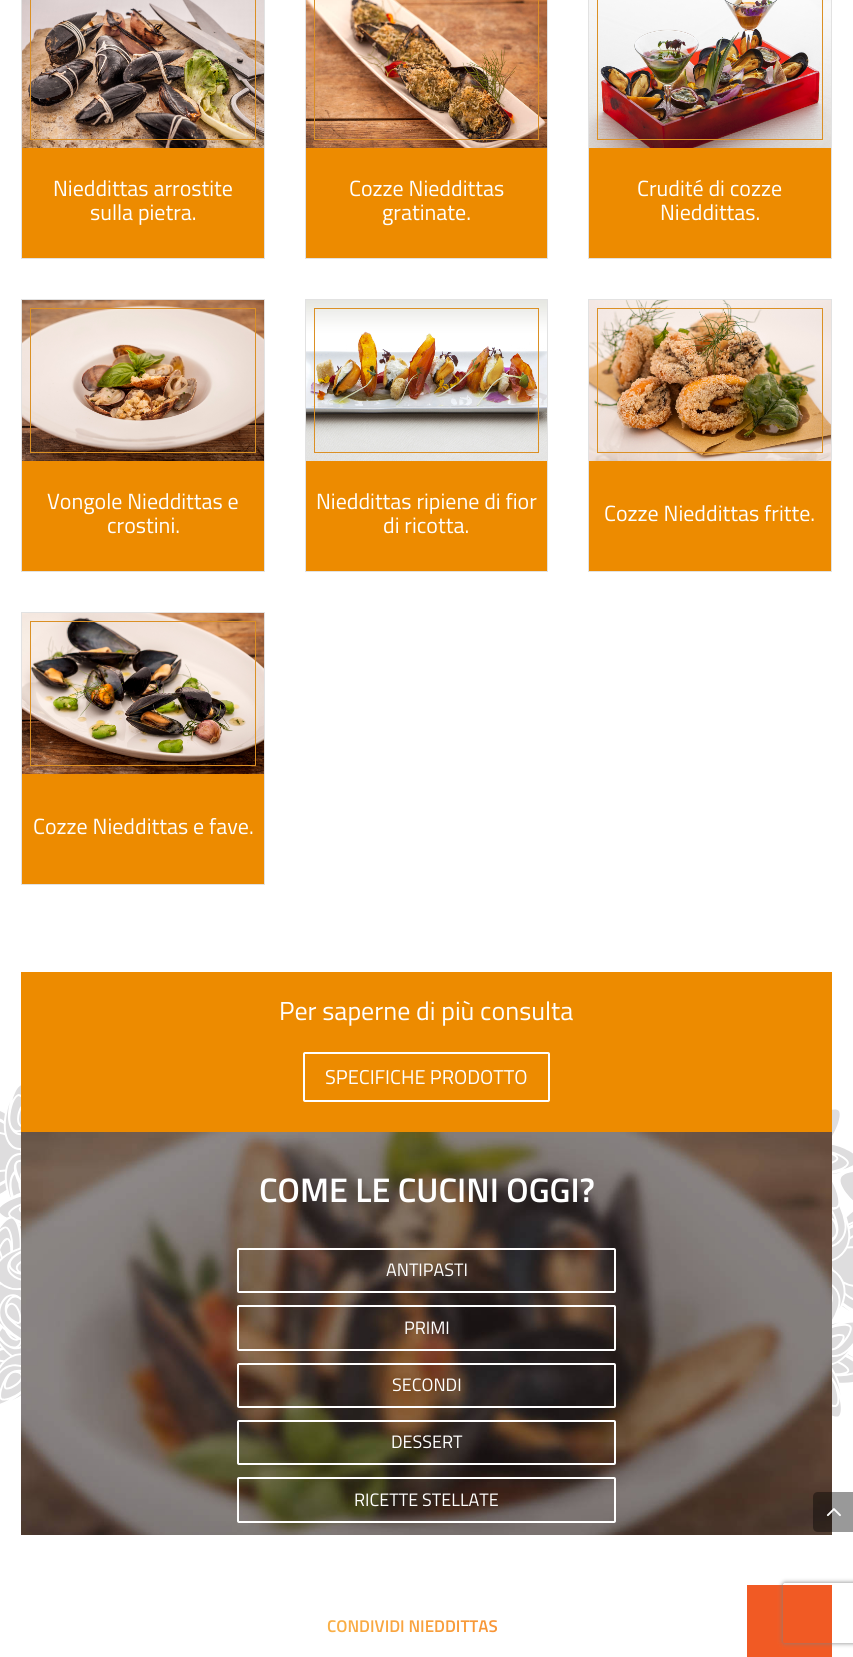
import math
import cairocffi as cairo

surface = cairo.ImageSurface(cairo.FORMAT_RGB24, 853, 1657)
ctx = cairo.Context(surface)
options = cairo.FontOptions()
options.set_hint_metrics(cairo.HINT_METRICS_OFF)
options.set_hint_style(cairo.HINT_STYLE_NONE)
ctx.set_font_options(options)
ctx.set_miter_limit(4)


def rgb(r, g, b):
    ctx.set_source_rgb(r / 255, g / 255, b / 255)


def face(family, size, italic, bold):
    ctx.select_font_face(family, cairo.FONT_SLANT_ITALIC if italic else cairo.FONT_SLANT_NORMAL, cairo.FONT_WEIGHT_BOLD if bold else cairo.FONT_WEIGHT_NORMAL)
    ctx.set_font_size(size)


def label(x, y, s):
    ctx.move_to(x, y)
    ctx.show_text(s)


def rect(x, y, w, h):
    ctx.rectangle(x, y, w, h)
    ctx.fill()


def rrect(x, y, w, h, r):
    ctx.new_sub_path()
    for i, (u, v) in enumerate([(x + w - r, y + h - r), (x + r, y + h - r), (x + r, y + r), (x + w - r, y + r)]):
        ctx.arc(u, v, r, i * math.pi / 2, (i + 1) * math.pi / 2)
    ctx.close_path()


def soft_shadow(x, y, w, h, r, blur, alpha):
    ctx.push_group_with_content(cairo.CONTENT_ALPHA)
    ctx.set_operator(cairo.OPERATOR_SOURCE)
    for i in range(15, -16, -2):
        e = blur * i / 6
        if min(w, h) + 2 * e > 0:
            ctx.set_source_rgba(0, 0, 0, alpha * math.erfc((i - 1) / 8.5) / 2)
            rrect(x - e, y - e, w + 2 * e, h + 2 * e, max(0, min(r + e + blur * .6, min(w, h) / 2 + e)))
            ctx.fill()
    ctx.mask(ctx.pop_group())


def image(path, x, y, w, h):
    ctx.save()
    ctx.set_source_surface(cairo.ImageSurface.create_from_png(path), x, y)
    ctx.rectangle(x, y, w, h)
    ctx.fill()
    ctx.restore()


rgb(255, 255, 255)
ctx.paint()
rgb(237, 139, 0)
rect(22, 148, 242, 110)
ctx.rectangle(21.5, -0.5, 243, 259)
rgb(226, 226, 226)
ctx.set_line_width(1)
ctx.stroke()
image('image0.png', 22, 0, 242, 148)
ctx.rectangle(30.5, -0.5, 225, 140)
rgb(219, 144, 36)
ctx.stroke()
face('Titillium Web', 22, 0, 0)
rgb(255, 255, 255)
label(53, 196, 'Nieddittas arrostite')
label(90, 220, 'sulla pietra.')
rgb(237, 139, 0)
rect(306, 148, 241, 110)
ctx.rectangle(305.5, -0.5, 242, 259)
rgb(226, 226, 226)
ctx.stroke()
image('image1.png', 306, 0, 241, 148)
ctx.rectangle(314.5, -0.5, 224, 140)
rgb(219, 144, 36)
ctx.stroke()
rgb(255, 255, 255)
label(349, 196, 'Cozze Nieddittas')
label(382, 220, 'gratinate.')
rgb(237, 139, 0)
rect(589, 148, 242, 110)
ctx.rectangle(588.5, -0.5, 243, 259)
rgb(226, 226, 226)
ctx.stroke()
image('image2.png', 589, 0, 242, 148)
ctx.rectangle(597.5, -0.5, 225, 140)
rgb(219, 144, 36)
ctx.stroke()
rgb(255, 255, 255)
label(637, 196, 'Crudité di cozze')
label(660, 220, 'Nieddittas.')
rgb(237, 139, 0)
rect(22, 461, 242, 110)
ctx.rectangle(21.5, 299.5, 243, 272)
rgb(226, 226, 226)
ctx.stroke()
image('image3.png', 22, 300, 242, 161)
ctx.rectangle(30.5, 308.5, 225, 144)
rgb(219, 144, 36)
ctx.stroke()
rgb(255, 255, 255)
label(47, 509, 'Vongole Nieddittas e')
label(107, 533, 'crostini.')
rgb(237, 139, 0)
rect(306, 461, 241, 110)
ctx.rectangle(305.5, 299.5, 242, 272)
rgb(226, 226, 226)
ctx.stroke()
image('image4.png', 306, 300, 241, 161)
ctx.rectangle(314.5, 308.5, 224, 144)
rgb(219, 144, 36)
ctx.stroke()
rgb(255, 255, 255)
label(316, 509, 'Nieddittas ripiene di fior')
label(383, 533, 'di ricotta.')
rgb(237, 139, 0)
rect(589, 461, 242, 110)
ctx.rectangle(588.5, 299.5, 243, 272)
rgb(226, 226, 226)
ctx.stroke()
image('image5.png', 589, 300, 242, 161)
ctx.rectangle(597.5, 308.5, 225, 144)
rgb(219, 144, 36)
ctx.stroke()
rgb(255, 255, 255)
label(604, 521, 'Cozze Nieddittas fritte.')
rgb(237, 139, 0)
rect(22, 774, 242, 110)
ctx.rectangle(21.5, 612.5, 243, 272)
rgb(226, 226, 226)
ctx.stroke()
image('image6.png', 22, 613, 242, 161)
ctx.rectangle(30.5, 621.5, 225, 144)
rgb(219, 144, 36)
ctx.stroke()
rgb(255, 255, 255)
label(33, 834, 'Cozze Nieddittas e fave.')
image('image7.png', 0, 1085, 853, 332)
rgb(237, 139, 0)
rect(21, 972, 811, 160)
face('Titillium Web', 26, 0, 0)
rgb(255, 255, 255)
label(279, 1020, 'Per saperne di più consulta')
rrect(304, 1053, 245, 48, 1)
ctx.set_line_width(2)
ctx.stroke()
face('Titillium Web', 20, 0, 0)
label(325, 1084, 'SPECIFICHE PRODOTTO')
image('image8.png', 21, 1132, 811, 403)
face('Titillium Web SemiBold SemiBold', 34.1, 0, 0)
label(259, 1202, 'COME LE CUCINI OGGI?')
rrect(238, 1249, 377, 43, 1)
ctx.stroke()
face('Titillium Web', 18, 0, 0)
label(386, 1276, 'ANTIPASTI')
rrect(238, 1306, 377, 44, 1)
ctx.stroke()
label(404, 1334, 'PRIMI')
rrect(238, 1364, 377, 43, 1)
ctx.stroke()
label(392, 1391, 'SECONDI')
rrect(238, 1421, 377, 43, 1)
ctx.stroke()
label(391, 1448, 'DESSERT')
rrect(238, 1478, 377, 44, 1)
ctx.stroke()
label(354, 1506, 'RICETTE STELLATE')
rgb(241, 90, 36)
rect(747, 1585, 85, 72)
face('Titillium Web SemiBold SemiBold', 17, 0, 0)
gradient = cairo.LinearGradient(92, 1558, 734, 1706)
gradient.add_color_stop_rgba(0, 0.98, 0.851, 0.38, 1)
gradient.add_color_stop_rgba(1, 0.969, 0.42, 0.11, 1)
ctx.set_source(gradient)
label(327, 1632, 'CONDIVIDI NIEDDITTAS')
ctx.set_source_rgba(0, 0, 0, 0.4)
ctx.new_path()
ctx.move_to(818, 1492)
ctx.line_to(853, 1492)
ctx.line_to(853, 1532)
ctx.line_to(818, 1532)
ctx.curve_to(815, 1532, 813, 1530, 813, 1527)
ctx.line_to(813, 1497)
ctx.curve_to(813, 1494, 815, 1492, 818, 1492)
ctx.close_path()
ctx.fill()
image('image9.png', 826, 1508, 15, 9)
ctx.save()
ctx.set_fill_rule(cairo.FILL_RULE_EVEN_ODD)
ctx.new_path()
ctx.move_to(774, 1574)
ctx.line_to(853, 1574)
ctx.line_to(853, 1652)
ctx.line_to(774, 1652)
ctx.close_path()
ctx.move_to(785, 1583)
ctx.line_to(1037, 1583)
ctx.curve_to(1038, 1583, 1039, 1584, 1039, 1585)
ctx.line_to(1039, 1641)
ctx.curve_to(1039, 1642, 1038, 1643, 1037, 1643)
ctx.line_to(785, 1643)
ctx.curve_to(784, 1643, 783, 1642, 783, 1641)
ctx.line_to(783, 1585)
ctx.curve_to(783, 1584, 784, 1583, 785, 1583)
ctx.close_path()
ctx.clip()
rgb(128, 128, 128)
soft_shadow(783, 1583, 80, 60, 2, 2.5, 1)
ctx.restore()
surface.write_to_png('render.png')
